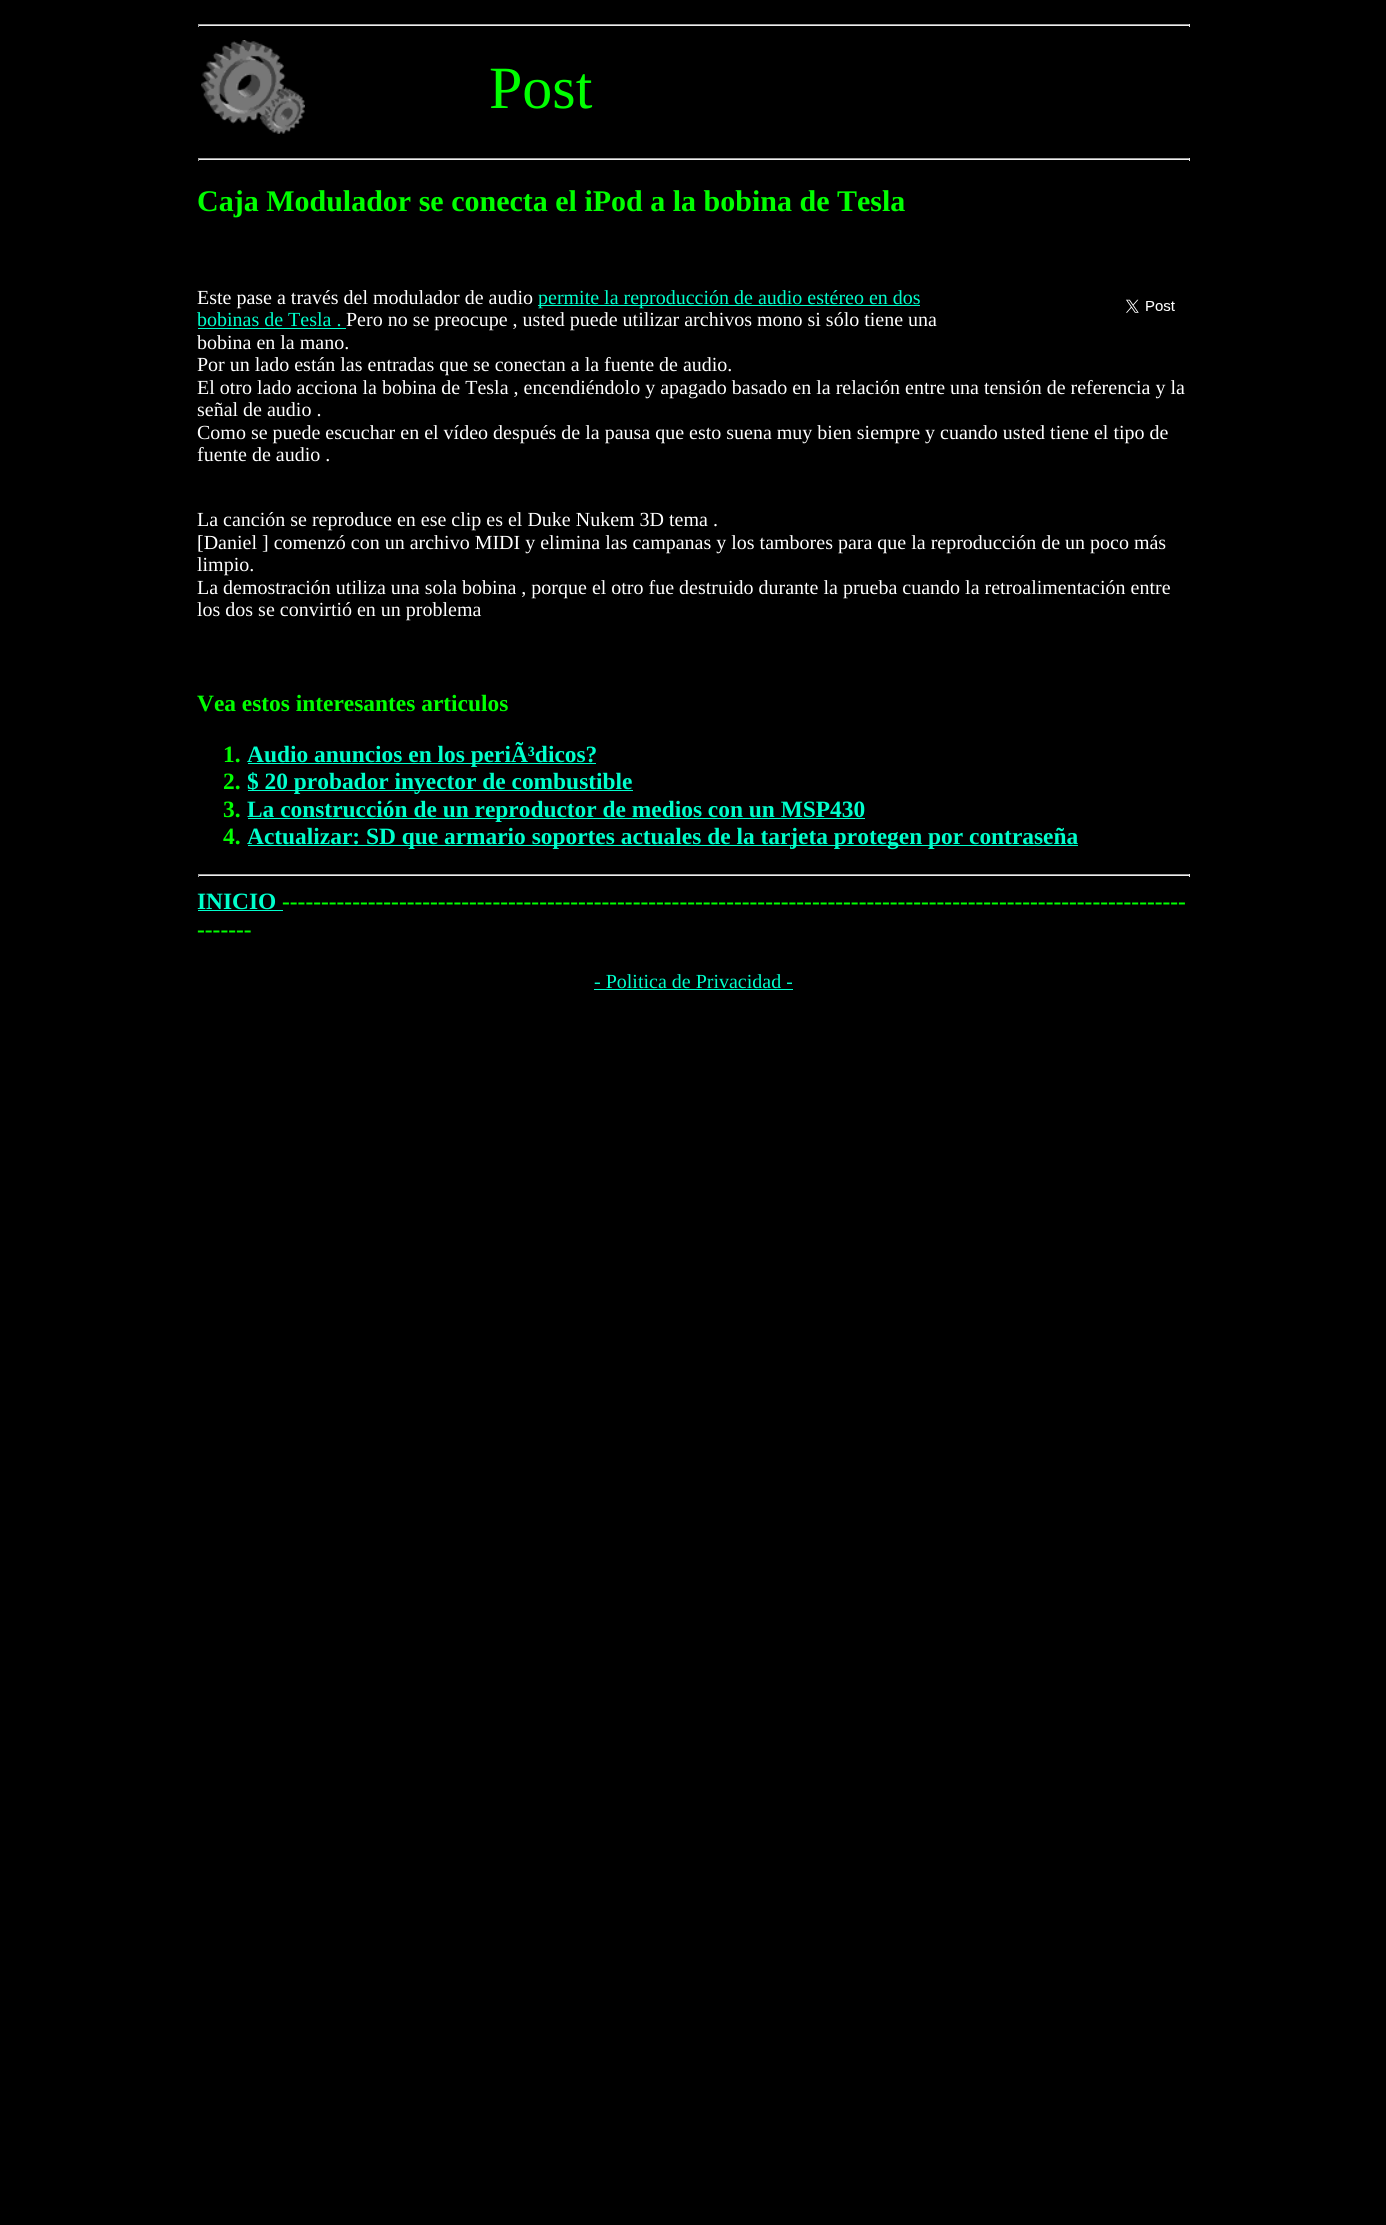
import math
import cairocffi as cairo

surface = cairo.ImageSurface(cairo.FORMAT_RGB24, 1386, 2225)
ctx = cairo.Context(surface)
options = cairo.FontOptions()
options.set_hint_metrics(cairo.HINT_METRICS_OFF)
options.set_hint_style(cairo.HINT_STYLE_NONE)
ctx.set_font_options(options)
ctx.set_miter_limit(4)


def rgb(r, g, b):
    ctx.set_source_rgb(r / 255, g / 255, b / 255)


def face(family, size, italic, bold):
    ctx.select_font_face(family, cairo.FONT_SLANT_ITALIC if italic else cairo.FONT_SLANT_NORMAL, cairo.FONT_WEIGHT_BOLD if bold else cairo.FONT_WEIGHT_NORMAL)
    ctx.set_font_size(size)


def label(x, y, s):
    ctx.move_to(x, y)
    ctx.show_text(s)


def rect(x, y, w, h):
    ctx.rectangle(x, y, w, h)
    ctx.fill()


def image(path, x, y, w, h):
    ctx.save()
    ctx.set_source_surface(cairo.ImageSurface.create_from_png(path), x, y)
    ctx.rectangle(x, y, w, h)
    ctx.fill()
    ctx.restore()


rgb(0, 0, 0)
ctx.paint()
rgb(159, 159, 159)
rect(198, 24, 992, 1)
rgb(238, 238, 238)
rect(1189, 24, 1, 3)
rect(198, 25, 992, 1)
rgb(159, 159, 159)
rect(198, 24, 1, 3)
image('image0.png', 201, 40, 104, 94)
face('Liberation Serif', 60, 0, 0)
rgb(0, 255, 0)
label(489, 108, 'Post')
rgb(159, 159, 159)
rect(198, 158, 992, 1)
rgb(238, 238, 238)
rect(1189, 158, 1, 3)
rect(198, 159, 992, 1)
rgb(159, 159, 159)
rect(198, 158, 1, 3)
face('Liberation Serif', 30, 0, 1)
rgb(0, 255, 0)
label(197, 211, 'Caja Modulador se conecta el iPod a la bobina de Tesla')
face('Liberation Serif', 20, 0, 0)
rgb(255, 255, 255)
label(197, 304, 'Este pase a través del modulador de audio')
rgb(0, 255, 204)
rect(538, 305, 382, 1)
label(538, 304, 'permite la reproducción de audio estéreo en dos')
label(197, 326, 'bobinas de Tesla .')
rgb(255, 255, 255)
label(346, 326, 'Pero no se preocupe , usted puede utilizar archivos mono si sólo tiene una')
rgb(0, 255, 204)
rect(198, 328, 148, 1)
rgb(255, 255, 255)
label(197, 349, 'bobina en la mano.')
label(197, 371, 'Por un lado están las entradas que se conectan a la fuente de audio.')
label(197, 394, 'El otro lado acciona la bobina de Tesla , encendiéndolo y apagado basado en la relación entre una tensión de referencia y la')
label(197, 416, 'señal de audio .')
label(197, 439, 'Como se puede escuchar en el vídeo después de la pausa que esto suena muy bien siempre y cuando usted tiene el tipo de')
label(197, 461, 'fuente de audio .')
image('image1.png', 1126, 299, 49, 14)
label(197, 526, 'La canción se reproduce en ese clip es el Duke Nukem 3D tema .')
label(197, 549, '[Daniel ] comenzó con un archivo MIDI y elimina las campanas y los tambores para que la reproducción de un poco más')
label(197, 571, 'limpio.')
label(197, 594, 'La demostración utiliza una sola bobina , porque el otro fue destruido durante la prueba cuando la retroalimentación entre')
label(197, 616, 'los dos se convirtió en un problema')
face('Liberation Serif', 23.4, 0, 1)
rgb(0, 255, 0)
label(197, 711, 'Vea estos interesantes articulos')
label(223, 762, '1.')
rgb(0, 255, 204)
rect(248, 763, 348, 1)
label(247, 762, 'Audio anuncios en los periÃ³dicos?')
rgb(0, 255, 0)
label(223, 789, '2.')
rgb(0, 255, 204)
rect(248, 790, 385, 1)
label(247, 789, '$ 20 probador inyector de combustible')
rgb(0, 255, 0)
label(223, 817, '3.')
rgb(0, 255, 204)
rect(248, 818, 617, 1)
label(247, 817, 'La construcción de un reproductor de medios con un MSP430')
rgb(0, 255, 0)
label(223, 844, '4.')
rgb(0, 255, 204)
rect(248, 845, 830, 1)
label(247, 844, 'Actualizar: SD que armario soportes actuales de la tarjeta protegen por contraseña')
rgb(159, 159, 159)
rect(198, 874, 992, 1)
rgb(238, 238, 238)
rect(1189, 874, 1, 3)
rect(198, 875, 992, 1)
rgb(159, 159, 159)
rect(198, 874, 1, 3)
rgb(0, 255, 204)
label(197, 909, 'INICIO')
rect(198, 910, 85, 1)
rgb(0, 255, 0)
label(282, 909, '--------------------------------------------------------------------------------------------------------------------')
label(197, 937, '-------')
face('Liberation Serif', 20, 0, 0)
rgb(0, 255, 204)
label(594, 988, '- Politica de Privacidad -')
rect(594, 989, 199, 1)
surface.write_to_png('render.png')
